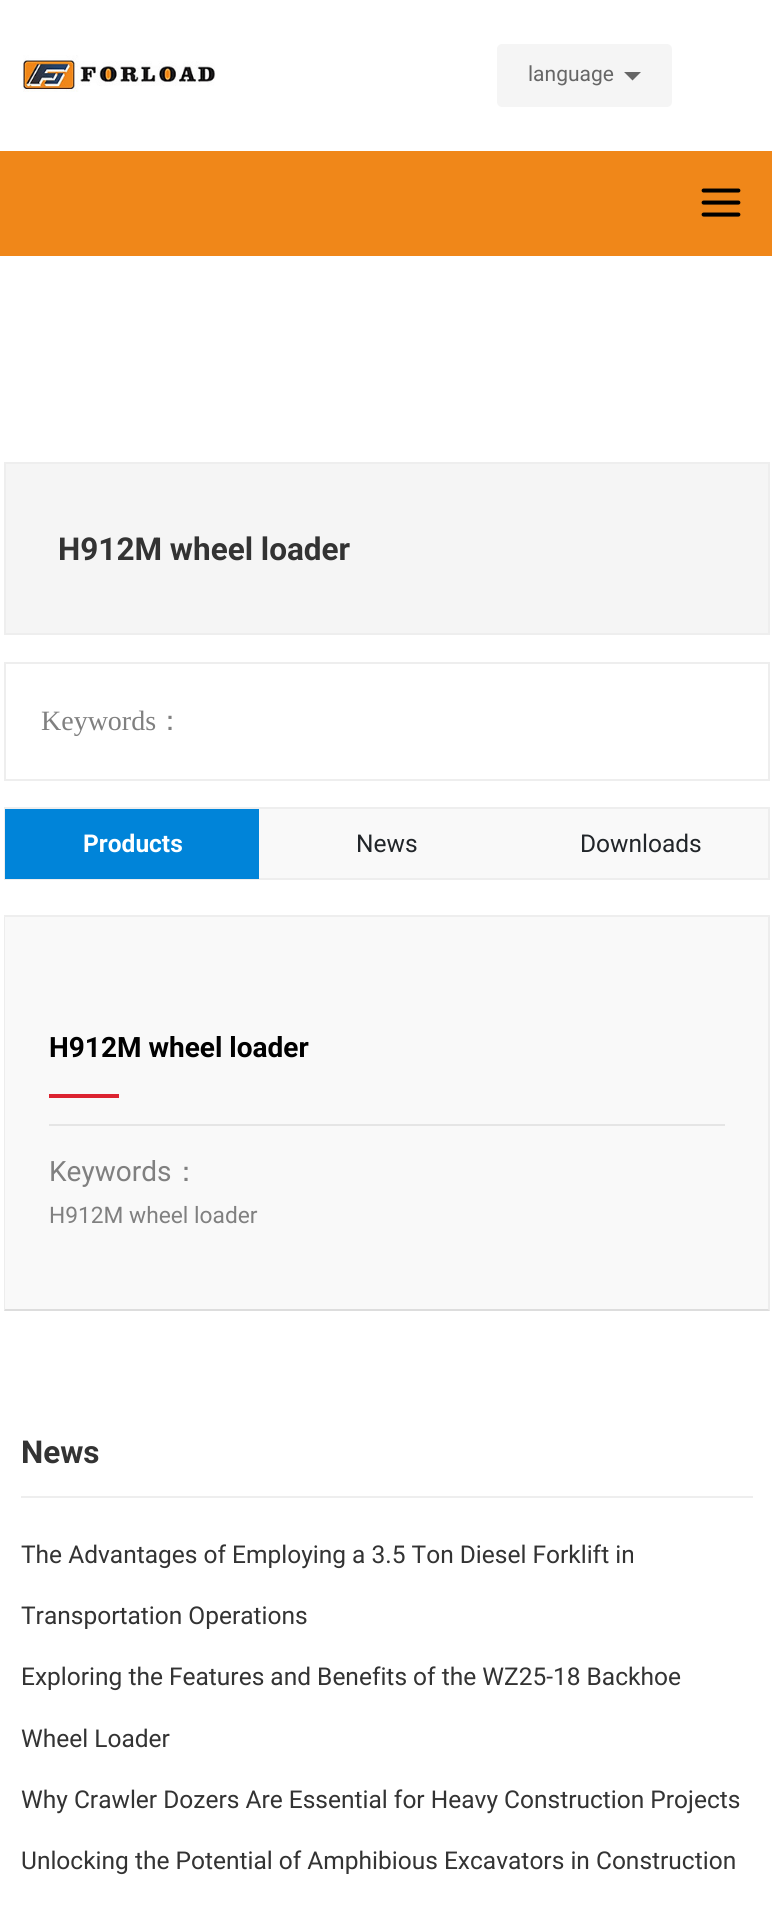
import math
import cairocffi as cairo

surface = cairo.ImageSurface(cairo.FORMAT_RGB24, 772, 1922)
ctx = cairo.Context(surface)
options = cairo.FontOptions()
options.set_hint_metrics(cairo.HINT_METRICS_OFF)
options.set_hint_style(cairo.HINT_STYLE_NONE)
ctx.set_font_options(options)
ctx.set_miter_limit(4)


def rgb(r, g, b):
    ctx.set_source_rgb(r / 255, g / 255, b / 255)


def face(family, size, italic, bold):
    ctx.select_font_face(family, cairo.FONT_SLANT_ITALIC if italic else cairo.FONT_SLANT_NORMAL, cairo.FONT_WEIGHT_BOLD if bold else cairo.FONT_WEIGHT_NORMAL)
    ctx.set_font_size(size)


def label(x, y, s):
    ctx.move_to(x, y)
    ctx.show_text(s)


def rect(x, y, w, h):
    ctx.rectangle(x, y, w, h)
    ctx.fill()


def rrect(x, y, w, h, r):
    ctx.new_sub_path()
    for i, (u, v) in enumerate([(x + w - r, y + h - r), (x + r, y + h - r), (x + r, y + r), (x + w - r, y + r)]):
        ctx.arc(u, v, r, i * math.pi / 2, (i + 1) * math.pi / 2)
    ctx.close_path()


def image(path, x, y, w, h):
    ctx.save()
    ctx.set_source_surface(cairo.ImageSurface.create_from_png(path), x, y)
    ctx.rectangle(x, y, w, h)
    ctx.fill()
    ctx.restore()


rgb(255, 255, 255)
ctx.paint()
image('image0.png', 23, 55, 193, 37)
rgb(245, 245, 245)
rrect(497, 44, 175, 63, 5)
ctx.fill()
face('Roboto', 21, 0, 0)
rgb(102, 102, 102)
label(528, 81, 'language')
ctx.new_path()
ctx.move_to(624, 72)
ctx.line_to(632.5, 80.5)
ctx.line_to(641, 72)
ctx.close_path()
ctx.fill()
rgb(240, 135, 25)
rect(0, 151, 772, 105)
image('image1.png', 701, 188, 40, 29)
rgb(245, 245, 245)
ctx.rectangle(5, 463, 764, 171)
ctx.fill_preserve()
rgb(238, 238, 238)
ctx.stroke()
face('Roboto', 31.5, 0, 1)
rgb(51, 51, 51)
label(58, 560, 'H912M wheel loader')
ctx.rectangle(5, 663, 764, 117)
rgb(238, 238, 238)
ctx.stroke()
face('Liberation Serif', 28, 0, 0)
rgb(128, 128, 128)
label(41, 730, 'Keywords')
face('WenQuanYi Zen Hei Medium', 28, 0, 0)
label(156, 730, '：')
rgb(249, 249, 249)
rect(259, 809, 509, 69)
ctx.rectangle(5, 808, 764, 71)
rgb(238, 238, 238)
ctx.stroke()
rgb(0, 132, 217)
rect(5, 809, 254, 70)
face('Roboto', 24.5, 0, 1)
rgb(255, 255, 255)
label(83, 852, 'Products')
face('Roboto', 24.5, 0, 0)
rgb(33, 37, 41)
label(356, 852, 'News')
label(580, 852, 'Downloads')
rgb(249, 249, 249)
rect(4, 915, 766, 396)
rgb(238, 238, 238)
ctx.new_path()
ctx.move_to(4, 915)
ctx.line_to(770, 915)
ctx.line_to(768, 917)
ctx.line_to(5, 917)
ctx.close_path()
ctx.fill()
ctx.set_source_rgba(0.867, 0.867, 0.867, 0.4)
ctx.new_path()
ctx.move_to(770, 915)
ctx.line_to(770, 1311)
ctx.line_to(768, 1309)
ctx.line_to(768, 917)
ctx.close_path()
ctx.fill()
rgb(221, 221, 221)
ctx.new_path()
ctx.move_to(770, 1311)
ctx.line_to(4, 1311)
ctx.line_to(5, 1309)
ctx.line_to(768, 1309)
ctx.close_path()
ctx.fill()
ctx.set_source_rgba(0.867, 0.867, 0.867, 0.4)
ctx.new_path()
ctx.move_to(4, 1311)
ctx.line_to(4, 915)
ctx.line_to(5, 917)
ctx.line_to(5, 1309)
ctx.close_path()
ctx.fill()
face('Roboto', 28, 0, 1)
rgb(0, 0, 0)
label(49, 1057, 'H912M wheel loader')
rgb(220, 35, 48)
rect(49, 1094, 70, 4)
rgb(229, 229, 229)
rect(49, 1124, 676, 2)
face('Roboto', 28, 0, 0)
rgb(128, 128, 128)
label(49, 1181, 'Keywords')
face('WenQuanYi Zen Hei Medium', 28, 0, 0)
label(172, 1181, '：')
face('Roboto', 22.75, 0, 0)
label(49, 1223, 'H912M wheel loader')
rgb(238, 238, 238)
rect(21, 1496, 732, 2)
face('Roboto', 31.5, 0, 1)
rgb(51, 51, 51)
label(21, 1463, 'News')
face('Roboto', 24.5, 0, 0)
label(21, 1563, 'The Advantages of Employing a 3.5 Ton Diesel Forklift in')
label(21, 1624, 'Transportation Operations')
label(21, 1685, 'Exploring the Features and Benefits of the WZ25-18 Backhoe')
label(21, 1747, 'Wheel Loader')
label(21, 1808, 'Why Crawler Dozers Are Essential for Heavy Construction Projects')
label(21, 1869, 'Unlocking the Potential of Amphibious Excavators in Construction')
surface.write_to_png('render.png')
